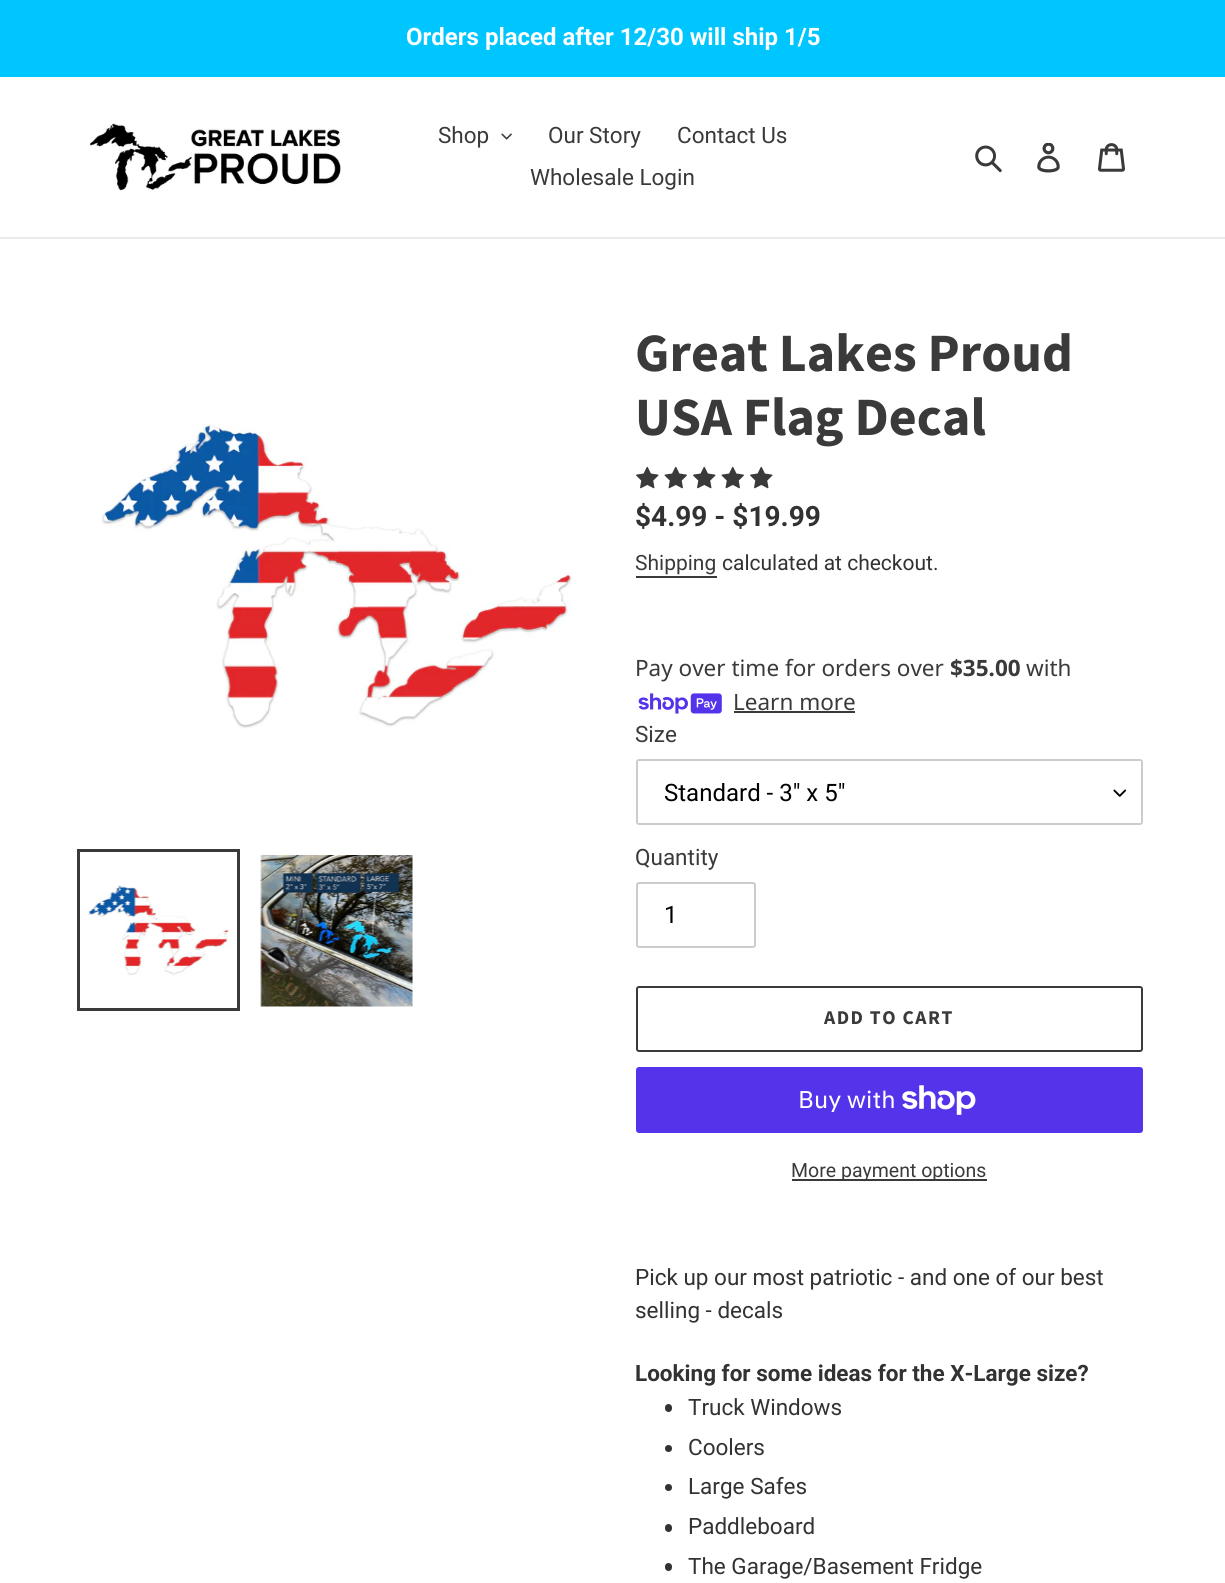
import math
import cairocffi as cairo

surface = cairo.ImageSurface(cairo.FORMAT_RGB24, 1225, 1583)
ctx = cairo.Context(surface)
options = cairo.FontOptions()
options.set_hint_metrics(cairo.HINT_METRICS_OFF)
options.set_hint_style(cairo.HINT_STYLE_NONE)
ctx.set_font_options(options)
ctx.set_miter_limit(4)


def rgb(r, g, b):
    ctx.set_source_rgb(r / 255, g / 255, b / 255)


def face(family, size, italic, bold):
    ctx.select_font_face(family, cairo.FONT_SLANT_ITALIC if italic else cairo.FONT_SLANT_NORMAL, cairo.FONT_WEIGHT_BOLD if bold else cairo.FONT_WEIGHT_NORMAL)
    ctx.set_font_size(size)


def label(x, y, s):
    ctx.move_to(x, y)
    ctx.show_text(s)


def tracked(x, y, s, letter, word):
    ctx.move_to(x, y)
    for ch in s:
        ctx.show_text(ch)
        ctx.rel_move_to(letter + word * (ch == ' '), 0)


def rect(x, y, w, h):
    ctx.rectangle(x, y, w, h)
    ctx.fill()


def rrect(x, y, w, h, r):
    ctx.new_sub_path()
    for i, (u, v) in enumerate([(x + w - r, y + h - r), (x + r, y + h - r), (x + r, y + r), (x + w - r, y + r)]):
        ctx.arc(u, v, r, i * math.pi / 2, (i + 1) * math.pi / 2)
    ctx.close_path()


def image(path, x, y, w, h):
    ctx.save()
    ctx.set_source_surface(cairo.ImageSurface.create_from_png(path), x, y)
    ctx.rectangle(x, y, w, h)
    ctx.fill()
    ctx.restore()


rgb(255, 255, 255)
ctx.paint()
rgb(0, 198, 255)
rect(0, 0, 1225, 77)
face('Roboto', 24, 0, 1)
rgb(255, 255, 255)
label(406, 45, 'Orders placed after 12/30 will ship 1/5')
rgb(235, 235, 235)
rect(0, 237, 1225, 2)
image('image0.png', 90, 123, 251, 68)
face('Roboto', 22.5, 0, 0)
rgb(58, 58, 58)
label(438, 143, 'Shop')
image('image1.png', 501, 133, 11, 7)
label(548, 143, 'Our Story')
label(677, 143, 'Contact Us')
label(530, 185, 'Wholesale Login')
image('image2.png', 975, 145, 27, 28)
image('image3.png', 1037, 143, 23, 30)
image('image4.png', 1098, 143, 27, 29)
image('image5.png', 101, 424, 472, 305)
ctx.rectangle(78.5, 850.5, 160, 159)
ctx.set_line_width(3)
ctx.stroke()
image('image6.png', 88, 885, 143, 90)
image('image7.png', 260, 855, 153, 152)
face('Source Sans Pro', 54, 0, 1)
label(635, 371, 'Great Lakes Proud')
label(635, 435, 'USA Flag Decal')
image('image8.png', 636, 466, 23, 23)
image('image9.png', 664, 466, 23, 23)
image('image8.png', 693, 466, 23, 23)
image('image9.png', 721, 466, 23, 23)
image('image8.png', 750, 466, 23, 23)
face('Roboto', 28, 0, 1)
rgb(51, 50, 50)
label(635, 526, '$4.99 - $19.99')
face('Roboto', 21, 0, 0)
rgb(58, 58, 58)
label(635, 570, 'Shipping')
rect(636, 576, 81, 2)
rgb(51, 50, 50)
label(722, 570, 'calculated at checkout.')
face('Noto Sans', 22.5, 0, 0)
rgb(58, 58, 58)
label(635, 676, 'Pay over time for orders over')
face('Noto Sans', 22.5, 0, 1)
label(950, 676, '$35.00')
face('Noto Sans', 22.5, 0, 0)
label(1026, 676, 'with')
image('image10.png', 638, 693, 84, 21)
label(733, 710, 'Learn more')
rect(734, 711, 121, 2)
face('Roboto', 22.5, 0, 0)
label(635, 742, 'Size')
image('image11.png', 1113, 789, 14, 8)
rrect(637, 760, 505, 64, 2)
rgb(204, 204, 204)
ctx.set_line_width(2)
ctx.stroke()
face('Roboto', 24, 0, 0)
rgb(0, 0, 0)
label(664, 801, 'Standard - 3" x 5"')
face('Roboto', 22.5, 0, 0)
rgb(58, 58, 58)
label(635, 865, 'Quantity')
rrect(637, 883, 118, 64, 2)
rgb(204, 204, 204)
ctx.stroke()
face('Roboto', 24, 0, 0)
rgb(0, 0, 0)
label(664, 923, '1')
rrect(637, 987, 505, 64, 2)
rgb(58, 58, 58)
ctx.stroke()
face('Source Sans Pro', 19.5, 0, 1)
tracked(824, 1024, 'ADD TO CART', 1.5, 0)
rgb(84, 51, 235)
rrect(636, 1067, 507, 66, 3)
ctx.fill()
face('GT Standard', 24, 0, 0)
rgb(255, 255, 255)
label(798, 1108, 'Buy with')
image('image12.png', 902, 1085, 74, 30)
rgb(58, 58, 58)
rect(792, 1179, 195, 2)
face('Roboto', 19.5, 0, 0)
label(791, 1177, 'More payment options')
face('Roboto', 22.5, 0, 0)
rgb(51, 50, 50)
label(635, 1285, 'Pick up our most patriotic - and one of our best')
label(635, 1318, 'selling - decals')
face('Roboto', 22.5, 0, 1)
label(635, 1381, 'Looking for some ideas for the X-Large size?')
rrect(665, 1404, 7, 8, 3.5)
ctx.fill()
face('Roboto', 22.5, 0, 0)
label(688, 1415, 'Truck Windows')
ctx.new_path()
ctx.arc(668.5, 1448.5, 3.5, 0, 2 * math.pi)
ctx.fill()
label(688, 1455, 'Coolers')
ctx.new_path()
ctx.arc(668.5, 1487.5, 3.5, 0, 2 * math.pi)
ctx.fill()
label(688, 1494, 'Large Safes')
rrect(665, 1524, 7, 8, 3.5)
ctx.fill()
label(688, 1534, 'Paddleboard')
rrect(665, 1563, 7, 8, 3.5)
ctx.fill()
label(688, 1574, 'The Garage/Basement Fridge')
surface.write_to_png('render.png')
